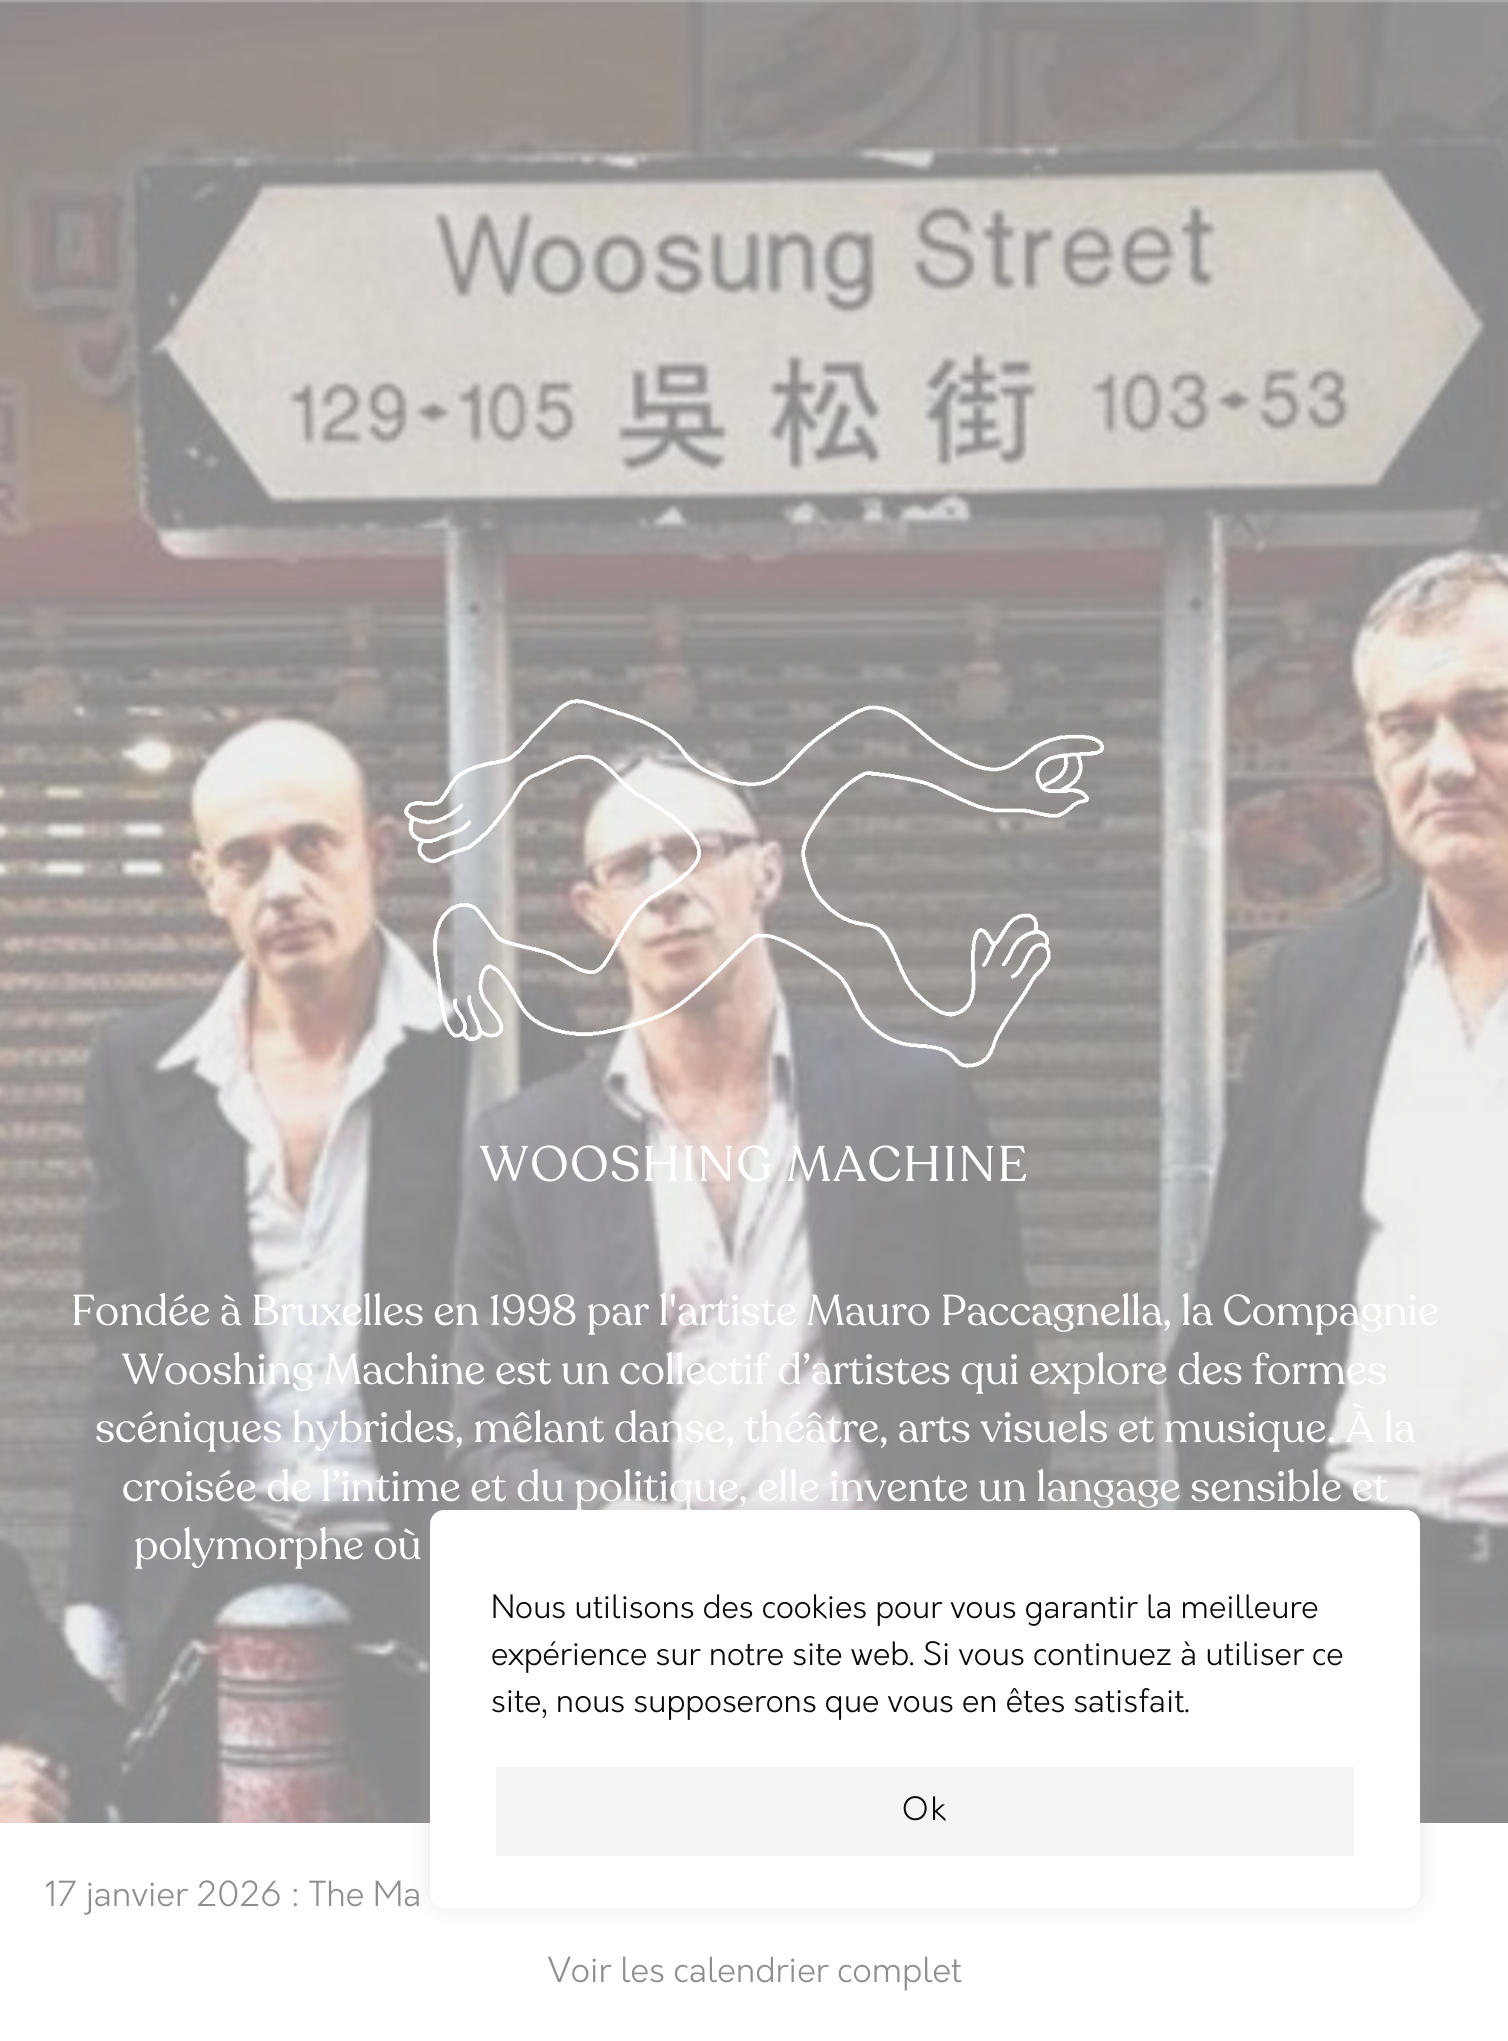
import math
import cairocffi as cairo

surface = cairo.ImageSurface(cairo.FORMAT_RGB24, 1508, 2041)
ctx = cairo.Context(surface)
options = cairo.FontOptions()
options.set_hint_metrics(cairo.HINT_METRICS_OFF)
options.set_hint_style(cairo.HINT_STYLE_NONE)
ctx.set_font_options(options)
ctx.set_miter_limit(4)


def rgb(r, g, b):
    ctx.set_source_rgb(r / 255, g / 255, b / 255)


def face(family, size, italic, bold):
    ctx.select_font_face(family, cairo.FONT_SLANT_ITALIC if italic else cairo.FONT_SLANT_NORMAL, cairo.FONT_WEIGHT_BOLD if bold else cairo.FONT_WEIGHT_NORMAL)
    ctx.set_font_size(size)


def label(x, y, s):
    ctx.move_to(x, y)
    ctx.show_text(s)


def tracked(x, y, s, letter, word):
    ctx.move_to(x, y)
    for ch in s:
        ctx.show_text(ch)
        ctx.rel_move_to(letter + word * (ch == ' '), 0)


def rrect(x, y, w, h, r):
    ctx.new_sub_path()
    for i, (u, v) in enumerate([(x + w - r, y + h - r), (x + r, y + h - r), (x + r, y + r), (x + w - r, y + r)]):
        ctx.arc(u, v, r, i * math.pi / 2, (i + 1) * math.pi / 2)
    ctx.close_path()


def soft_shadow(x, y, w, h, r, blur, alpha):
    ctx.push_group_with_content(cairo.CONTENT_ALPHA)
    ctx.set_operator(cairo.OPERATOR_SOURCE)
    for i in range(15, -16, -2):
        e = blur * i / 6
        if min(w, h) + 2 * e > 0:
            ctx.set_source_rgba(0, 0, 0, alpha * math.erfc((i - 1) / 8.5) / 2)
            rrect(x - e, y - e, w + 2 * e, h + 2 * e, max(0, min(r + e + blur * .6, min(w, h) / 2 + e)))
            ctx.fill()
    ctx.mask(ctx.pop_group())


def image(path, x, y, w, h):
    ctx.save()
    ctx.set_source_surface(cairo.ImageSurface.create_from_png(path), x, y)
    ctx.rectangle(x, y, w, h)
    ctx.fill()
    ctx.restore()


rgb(255, 255, 255)
ctx.paint()
image('image0.png', 0, 0, 1508, 1823)
image('image1.png', 404, 699, 700, 369)
face('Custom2', 49.5, 0, 0)
rgb(255, 255, 255)
tracked(480, 1181, 'WOOSHING MACHINE', 1.75, 0)
face('Custom2', 42.75, 0, 0)
label(71, 1325, 'Fondée à Bruxelles en 1998 par l\'artiste Mauro Paccagnella, la Compagnie')
label(122, 1384, 'Wooshing Machine est un collectif d’artistes qui explore des formes')
label(95, 1442, 'scéniques hybrides, mêlant danse, théâtre, arts visuels et musique. À la')
label(122, 1501, 'croisée de l’intime et du politique, elle invente un langage sensible et')
label(134, 1559, 'polymorphe où')
face('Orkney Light', 33.75, 0, 0)
rgb(142, 142, 142)
label(45, 1906, '17 janvier 2026 : The Ma')
label(548, 1982, 'Voir les calendrier complet')
rgb(172, 171, 171)
soft_shadow(430, 1508, 990, 398, 14, 11, 0.3)
rgb(255, 255, 255)
rrect(431, 1511, 988, 396, 13)
ctx.fill_preserve()
ctx.stroke()
face('Orkney Light', 31.5, 0, 0)
rgb(10, 10, 10)
label(491, 1618, 'Nous utilisons des cookies pour vous garantir la meilleure')
label(491, 1665, 'expérience sur notre site web. Si vous continuez à utiliser ce')
label(491, 1712, 'site, nous supposerons que vous en êtes satisfait.')
rgb(244, 244, 244)
rrect(493.5, 1764.5, 863, 94, 2.5)
ctx.fill_preserve()
rgb(255, 255, 255)
ctx.set_line_width(5)
ctx.stroke()
rgb(10, 10, 10)
tracked(902, 1820, 'Ok', 2, 0)
surface.write_to_png('render.png')
